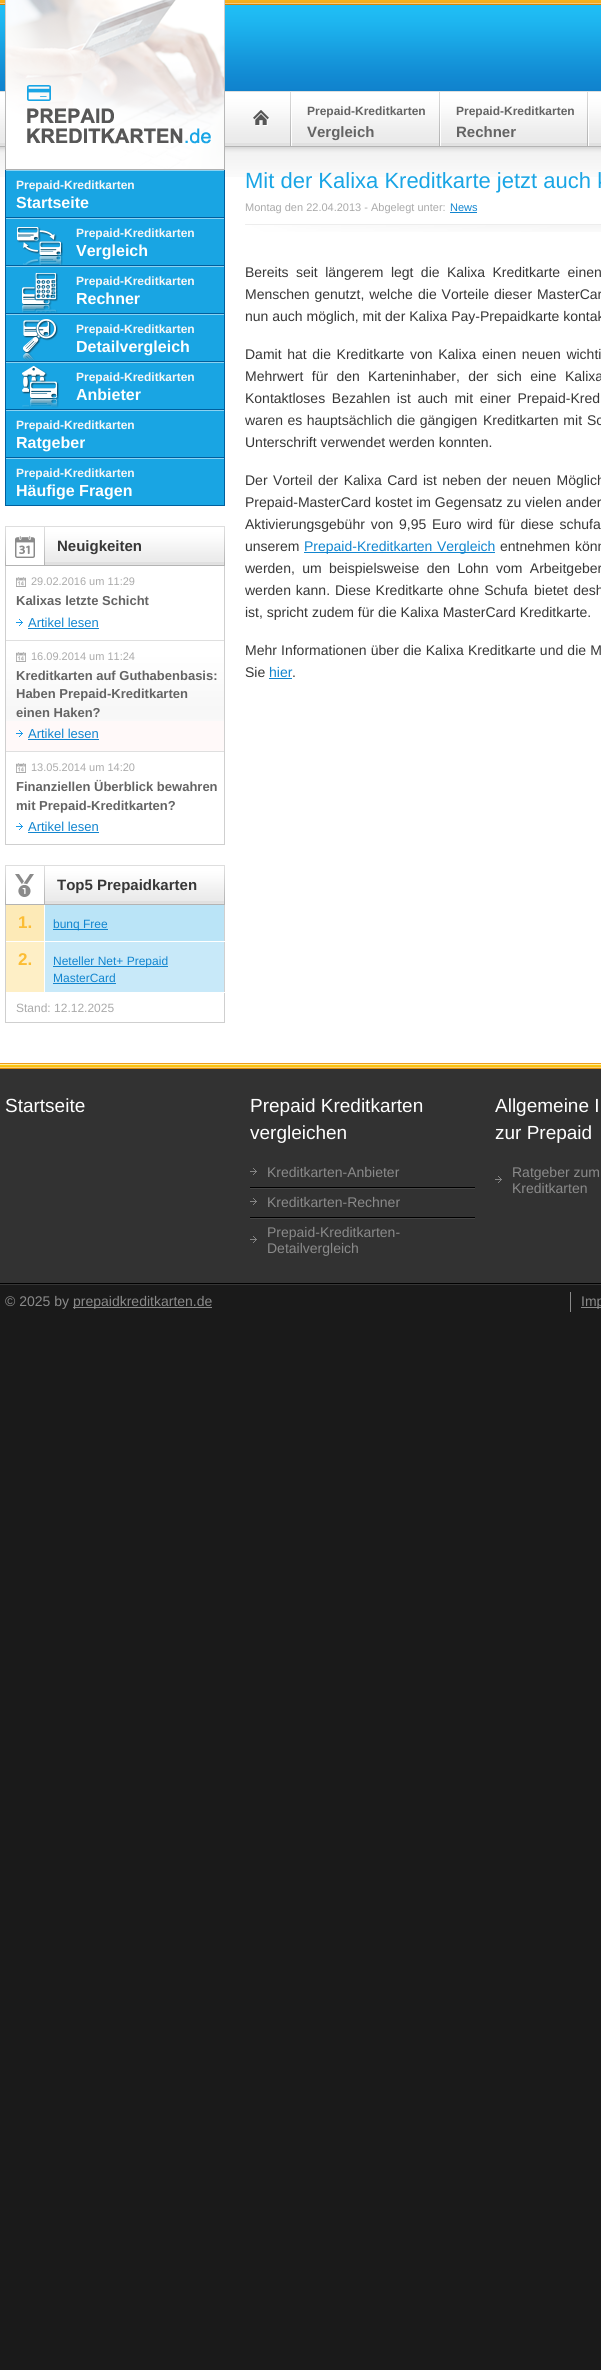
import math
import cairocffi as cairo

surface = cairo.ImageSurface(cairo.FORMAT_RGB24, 601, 2370)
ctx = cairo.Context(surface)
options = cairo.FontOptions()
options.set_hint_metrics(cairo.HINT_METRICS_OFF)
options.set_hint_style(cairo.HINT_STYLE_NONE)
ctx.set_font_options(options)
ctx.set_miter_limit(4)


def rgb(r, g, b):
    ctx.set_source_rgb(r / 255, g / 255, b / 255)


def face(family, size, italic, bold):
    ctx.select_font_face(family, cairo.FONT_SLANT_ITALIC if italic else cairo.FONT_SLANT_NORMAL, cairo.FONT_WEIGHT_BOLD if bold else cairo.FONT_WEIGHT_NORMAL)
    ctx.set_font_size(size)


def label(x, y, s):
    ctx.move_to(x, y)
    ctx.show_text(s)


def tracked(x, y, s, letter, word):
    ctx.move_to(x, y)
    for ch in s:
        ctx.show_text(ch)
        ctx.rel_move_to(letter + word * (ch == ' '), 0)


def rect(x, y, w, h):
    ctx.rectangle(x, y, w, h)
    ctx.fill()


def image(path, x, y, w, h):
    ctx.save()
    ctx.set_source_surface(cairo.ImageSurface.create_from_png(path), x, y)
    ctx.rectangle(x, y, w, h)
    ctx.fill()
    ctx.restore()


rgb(26, 26, 26)
ctx.paint()
rgb(255, 255, 255)
rect(0, 177, 601, 886)
image('image0.png', 0, 0, 601, 177)
image('image1.png', 5, 0, 220, 170)
image('image2.png', 290, 92, 2, 54)
image('image3.png', 253, 110, 17, 16)
image('image2.png', 439, 92, 2, 54)
face('Liberation Sans', 12, 0, 1)
rgb(100, 100, 100)
label(307, 115, 'Prepaid-Kreditkarten')
face('Liberation Sans', 15, 0, 1)
label(307, 137, 'Vergleich')
image('image2.png', 587, 92, 2, 54)
face('Liberation Sans', 12, 0, 1)
label(456, 115, 'Prepaid-Kreditkarten')
face('Liberation Sans', 15, 0, 1)
label(456, 137, 'Rechner')
rgb(25, 165, 227)
rect(6, 171, 218, 46)
rgb(140, 210, 241)
rect(6, 170, 218, 1)
rgb(0, 95, 157)
rect(224, 170, 1, 336)
rect(5, 217, 220, 1)
rect(5, 170, 1, 48)
face('Liberation Sans', 12, 0, 1)
rgb(248, 248, 248)
label(16, 189, 'Prepaid-Kreditkarten')
face('Liberation Sans', 16, 0, 1)
rgb(255, 255, 255)
label(16, 208, 'Startseite')
rgb(25, 165, 227)
rect(6, 219, 218, 46)
image('image4.png', 17, 227, 46, 38)
rgb(140, 210, 241)
rect(6, 218, 218, 1)
rgb(0, 95, 157)
rect(5, 265, 220, 1)
rect(5, 218, 1, 48)
face('Liberation Sans', 12, 0, 1)
rgb(248, 248, 248)
label(76, 237, 'Prepaid-Kreditkarten')
face('Liberation Sans', 16, 0, 1)
rgb(255, 255, 255)
label(76, 256, 'Vergleich')
rgb(25, 165, 227)
rect(6, 267, 218, 46)
image('image5.png', 22, 273, 36, 40)
rgb(140, 210, 241)
rect(6, 266, 218, 1)
rgb(0, 95, 157)
rect(5, 313, 220, 1)
rect(5, 266, 1, 48)
face('Liberation Sans', 12, 0, 1)
rgb(248, 248, 248)
label(76, 285, 'Prepaid-Kreditkarten')
face('Liberation Sans', 16, 0, 1)
rgb(255, 255, 255)
label(76, 304, 'Rechner')
rgb(25, 165, 227)
rect(6, 315, 218, 46)
image('image6.png', 23, 319, 35, 42)
rgb(140, 210, 241)
rect(6, 314, 218, 1)
rgb(0, 95, 157)
rect(5, 361, 220, 1)
rect(5, 314, 1, 48)
face('Liberation Sans', 12, 0, 1)
rgb(248, 248, 248)
label(76, 333, 'Prepaid-Kreditkarten')
face('Liberation Sans', 16, 0, 1)
rgb(255, 255, 255)
label(76, 352, 'Detailvergleich')
rgb(25, 165, 227)
rect(6, 363, 218, 46)
image('image7.png', 22, 366, 37, 42)
rgb(140, 210, 241)
rect(6, 362, 218, 1)
rgb(0, 95, 157)
rect(5, 409, 220, 1)
rect(5, 362, 1, 48)
face('Liberation Sans', 12, 0, 1)
rgb(248, 248, 248)
label(76, 381, 'Prepaid-Kreditkarten')
face('Liberation Sans', 16, 0, 1)
rgb(255, 255, 255)
label(76, 400, 'Anbieter')
rgb(25, 165, 227)
rect(6, 411, 218, 46)
rgb(140, 210, 241)
rect(6, 410, 218, 1)
rgb(0, 95, 157)
rect(5, 457, 220, 1)
rect(5, 410, 1, 48)
face('Liberation Sans', 12, 0, 1)
rgb(248, 248, 248)
label(16, 429, 'Prepaid-Kreditkarten')
face('Liberation Sans', 16, 0, 1)
rgb(255, 255, 255)
label(16, 448, 'Ratgeber')
rgb(25, 165, 227)
rect(6, 459, 218, 46)
rgb(140, 210, 241)
rect(6, 458, 218, 1)
rgb(0, 95, 157)
rect(5, 505, 220, 1)
rect(5, 458, 1, 48)
face('Liberation Sans', 12, 0, 1)
rgb(248, 248, 248)
label(16, 477, 'Prepaid-Kreditkarten')
face('Liberation Sans', 16, 0, 1)
rgb(255, 255, 255)
label(16, 496, 'Häufige Fragen')
image('image8.png', 5, 526, 220, 40)
face('Liberation Sans', 15, 0, 1)
rgb(55, 55, 55)
label(57, 551, 'Neuigkeiten')
rgb(207, 207, 207)
rect(224, 566, 1, 279)
rect(5, 844, 220, 1)
rect(5, 566, 1, 279)
image('image9.png', 16, 577, 10, 10)
face('Liberation Sans', 11, 0, 0)
rgb(170, 170, 170)
label(31, 585, '29.02.2016 um 11:29')
face('Liberation Sans', 13, 0, 1)
rgb(100, 100, 100)
label(16, 605, 'Kalixas letzte Schicht')
image('image10.png', 16, 619, 7, 7)
face('Liberation Sans', 13, 0, 0)
rgb(17, 133, 207)
label(28, 627, 'Artikel lesen')
rect(28, 628, 71, 1)
rgb(255, 249, 249)
rect(6, 721, 218, 30)
image('image11.png', 6, 641, 218, 80)
rgb(223, 223, 223)
rect(6, 640, 218, 1)
image('image12.png', 16, 652, 10, 10)
face('Liberation Sans', 11, 0, 0)
rgb(170, 170, 170)
label(31, 660, '16.09.2014 um 11:24')
face('Liberation Sans', 13, 0, 1)
rgb(100, 100, 100)
label(16, 680, 'Kreditkarten auf Guthabenbasis:')
label(16, 698, 'Haben Prepaid-Kreditkarten')
label(16, 717, 'einen Haken?')
image('image13.png', 16, 730, 7, 7)
face('Liberation Sans', 13, 0, 0)
rgb(17, 133, 207)
label(28, 738, 'Artikel lesen')
rect(28, 739, 71, 1)
rgb(223, 223, 223)
rect(6, 751, 218, 1)
image('image9.png', 16, 763, 10, 10)
face('Liberation Sans', 11, 0, 0)
rgb(170, 170, 170)
label(31, 771, '13.05.2014 um 14:20')
face('Liberation Sans', 13, 0, 1)
rgb(100, 100, 100)
label(16, 791, 'Finanziellen Überblick bewahren')
label(16, 810, 'mit Prepaid-Kreditkarten?')
image('image10.png', 16, 823, 7, 7)
face('Liberation Sans', 13, 0, 0)
rgb(17, 133, 207)
label(28, 831, 'Artikel lesen')
rect(28, 832, 71, 1)
image('image14.png', 5, 865, 220, 40)
face('Liberation Sans', 15, 0, 1)
rgb(55, 55, 55)
label(57, 890, 'Top5 Prepaidkarten')
rgb(207, 207, 207)
rect(224, 905, 1, 118)
rect(5, 1022, 220, 1)
rect(5, 905, 1, 118)
rgb(253, 234, 183)
rect(6, 905, 38, 36)
face('Liberation Sans', 17, 0, 1)
rgb(252, 189, 52)
label(18, 928, '1.')
rgb(186, 228, 247)
rect(45, 905, 179, 36)
rgb(255, 255, 255)
rect(224, 941, 1, 1)
rgb(17, 133, 207)
rect(53, 929, 55, 1)
face('Liberation Sans', 12, 0, 0)
label(53, 928, 'bunq Free')
rgb(254, 239, 198)
rect(6, 942, 38, 50)
face('Liberation Sans', 17, 0, 1)
rgb(252, 189, 52)
label(18, 965, '2.')
rgb(200, 233, 249)
rect(45, 942, 179, 50)
rgb(255, 255, 255)
rect(224, 992, 1, 1)
rgb(17, 133, 207)
rect(53, 966, 115, 1)
face('Liberation Sans', 12, 0, 0)
label(53, 965, 'Neteller Net+ Prepaid')
label(53, 982, 'MasterCard')
rect(53, 983, 63, 1)
rgb(170, 170, 170)
label(16, 1012, 'Stand: 12.12.2025')
face('Liberation Sans', 22, 0, 0)
rgb(25, 165, 229)
label(245, 188, 'Mit der Kalixa Kreditkarte jetzt auch k')
face('Liberation Sans', 11, 0, 0)
rgb(170, 170, 170)
label(245, 211, 'Montag den 22.04.2013 - Abgelegt unter:')
rgb(17, 133, 207)
label(450, 211, 'News')
rect(450, 212, 27, 1)
image('image15.png', 245, 224, 356, 8)
face('Liberation Sans', 14, 0, 0)
rgb(55, 55, 55)
tracked(245, 277, 'Bereits seit längerem legt die Kalixa Kreditkarte einen', 0, 3.5)
tracked(245, 299, 'Menschen genutzt, welche', 0, 1)
tracked(418, 299, 'die Vorteile dieser MasterCar', 0, 1)
label(245, 321, 'nun auch möglich, mit der Kalixa Pay-Prepaidkarte kontak')
tracked(245, 359, 'Damit hat die Kreditkarte von Kalixa einen neuen wichti', 0, 1.75)
tracked(245, 381, 'Mehrwert für den', 0, 4.5)
tracked(368, 381, 'Karteninhaber, der sich eine Kalixa', 0, 4.5)
tracked(245, 403, 'Kontaktloses Bezahlen ist auch mit einer Prepaid-Kred', 0, 2.75)
tracked(245, 425, 'waren es hauptsächlich die gängigen', 0, 0.5)
tracked(483, 425, 'Kreditkarten mit Sc', 0, 1)
label(245, 447, 'Unterschrift verwendet werden konnten.')
tracked(245, 485, 'Der Vorteil der Kalixa Card ist neben der neuen Möglich', 0, 1.5)
label(245, 507, 'Prepaid-MasterCard kostet im Gegensatz zu vielen ander')
tracked(245, 529, 'Aktivierungsgebühr von', 0, 2)
tracked(399, 529, '9,95 Euro wird für diese schufa', 0, 1.75)
label(245, 551, 'unserem')
rgb(17, 133, 207)
rect(304, 552, 191, 1)
label(304, 551, 'Prepaid-Kreditkarten')
label(437, 551, 'Vergleich')
rgb(55, 55, 55)
tracked(500, 551, 'entnehmen könn', 0, 1)
tracked(245, 573, 'werden, um beispielsweise den Lohn vom Arbeitgeber', 0, 3.5)
tracked(245, 595, 'werden kann. Diese Kreditkarte ohne Schufa', 0, 1)
tracked(534, 595, 'bietet desh', 0, 1)
label(245, 617, 'ist, spricht zudem für die Kalixa MasterCard Kreditkarte.')
tracked(245, 655, 'Mehr Informationen über die Kalixa Kreditkarte und die M', 0, 0.25)
label(245, 677, 'Sie')
rgb(17, 133, 207)
label(269, 677, 'hier')
rect(269, 678, 23, 1)
rgb(55, 55, 55)
label(292, 677, '.')
image('image16.png', 0, 1283, 601, 2)
rgb(50, 50, 50)
rect(0, 1069, 601, 214)
image('image17.png', 0, 1063, 601, 6)
face('Liberation Sans', 19, 0, 0)
rgb(255, 255, 255)
label(5, 1112, 'Startseite')
label(250, 1112, 'Prepaid Kreditkarten')
label(250, 1139, 'vergleichen')
image('image18.png', 250, 1168, 7, 7)
face('Liberation Sans', 14, 0, 0)
rgb(138, 138, 138)
label(267, 1177, 'Kreditkarten-Anbieter')
image('image19.png', 250, 1187, 225, 2)
image('image18.png', 250, 1198, 7, 7)
label(267, 1207, 'Kreditkarten-Rechner')
image('image19.png', 250, 1217, 225, 2)
image('image18.png', 250, 1236, 7, 7)
label(267, 1237, 'Prepaid-Kreditkarten-')
label(267, 1253, 'Detailvergleich')
face('Liberation Sans', 19, 0, 0)
rgb(255, 255, 255)
label(495, 1112, 'Allgemeine I')
label(495, 1139, 'zur Prepaid')
image('image18.png', 495, 1176, 7, 7)
face('Liberation Sans', 14, 0, 0)
rgb(138, 138, 138)
label(512, 1177, 'Ratgeber zum')
label(512, 1193, 'Kreditkarten')
label(5, 1306, '© 2025 by')
rect(73, 1307, 139, 1)
label(73, 1306, 'prepaidkreditkarten.de')
rect(570, 1292, 1, 20)
rect(581, 1307, 20, 1)
label(581, 1306, 'Imp')
surface.write_to_png('render.png')
